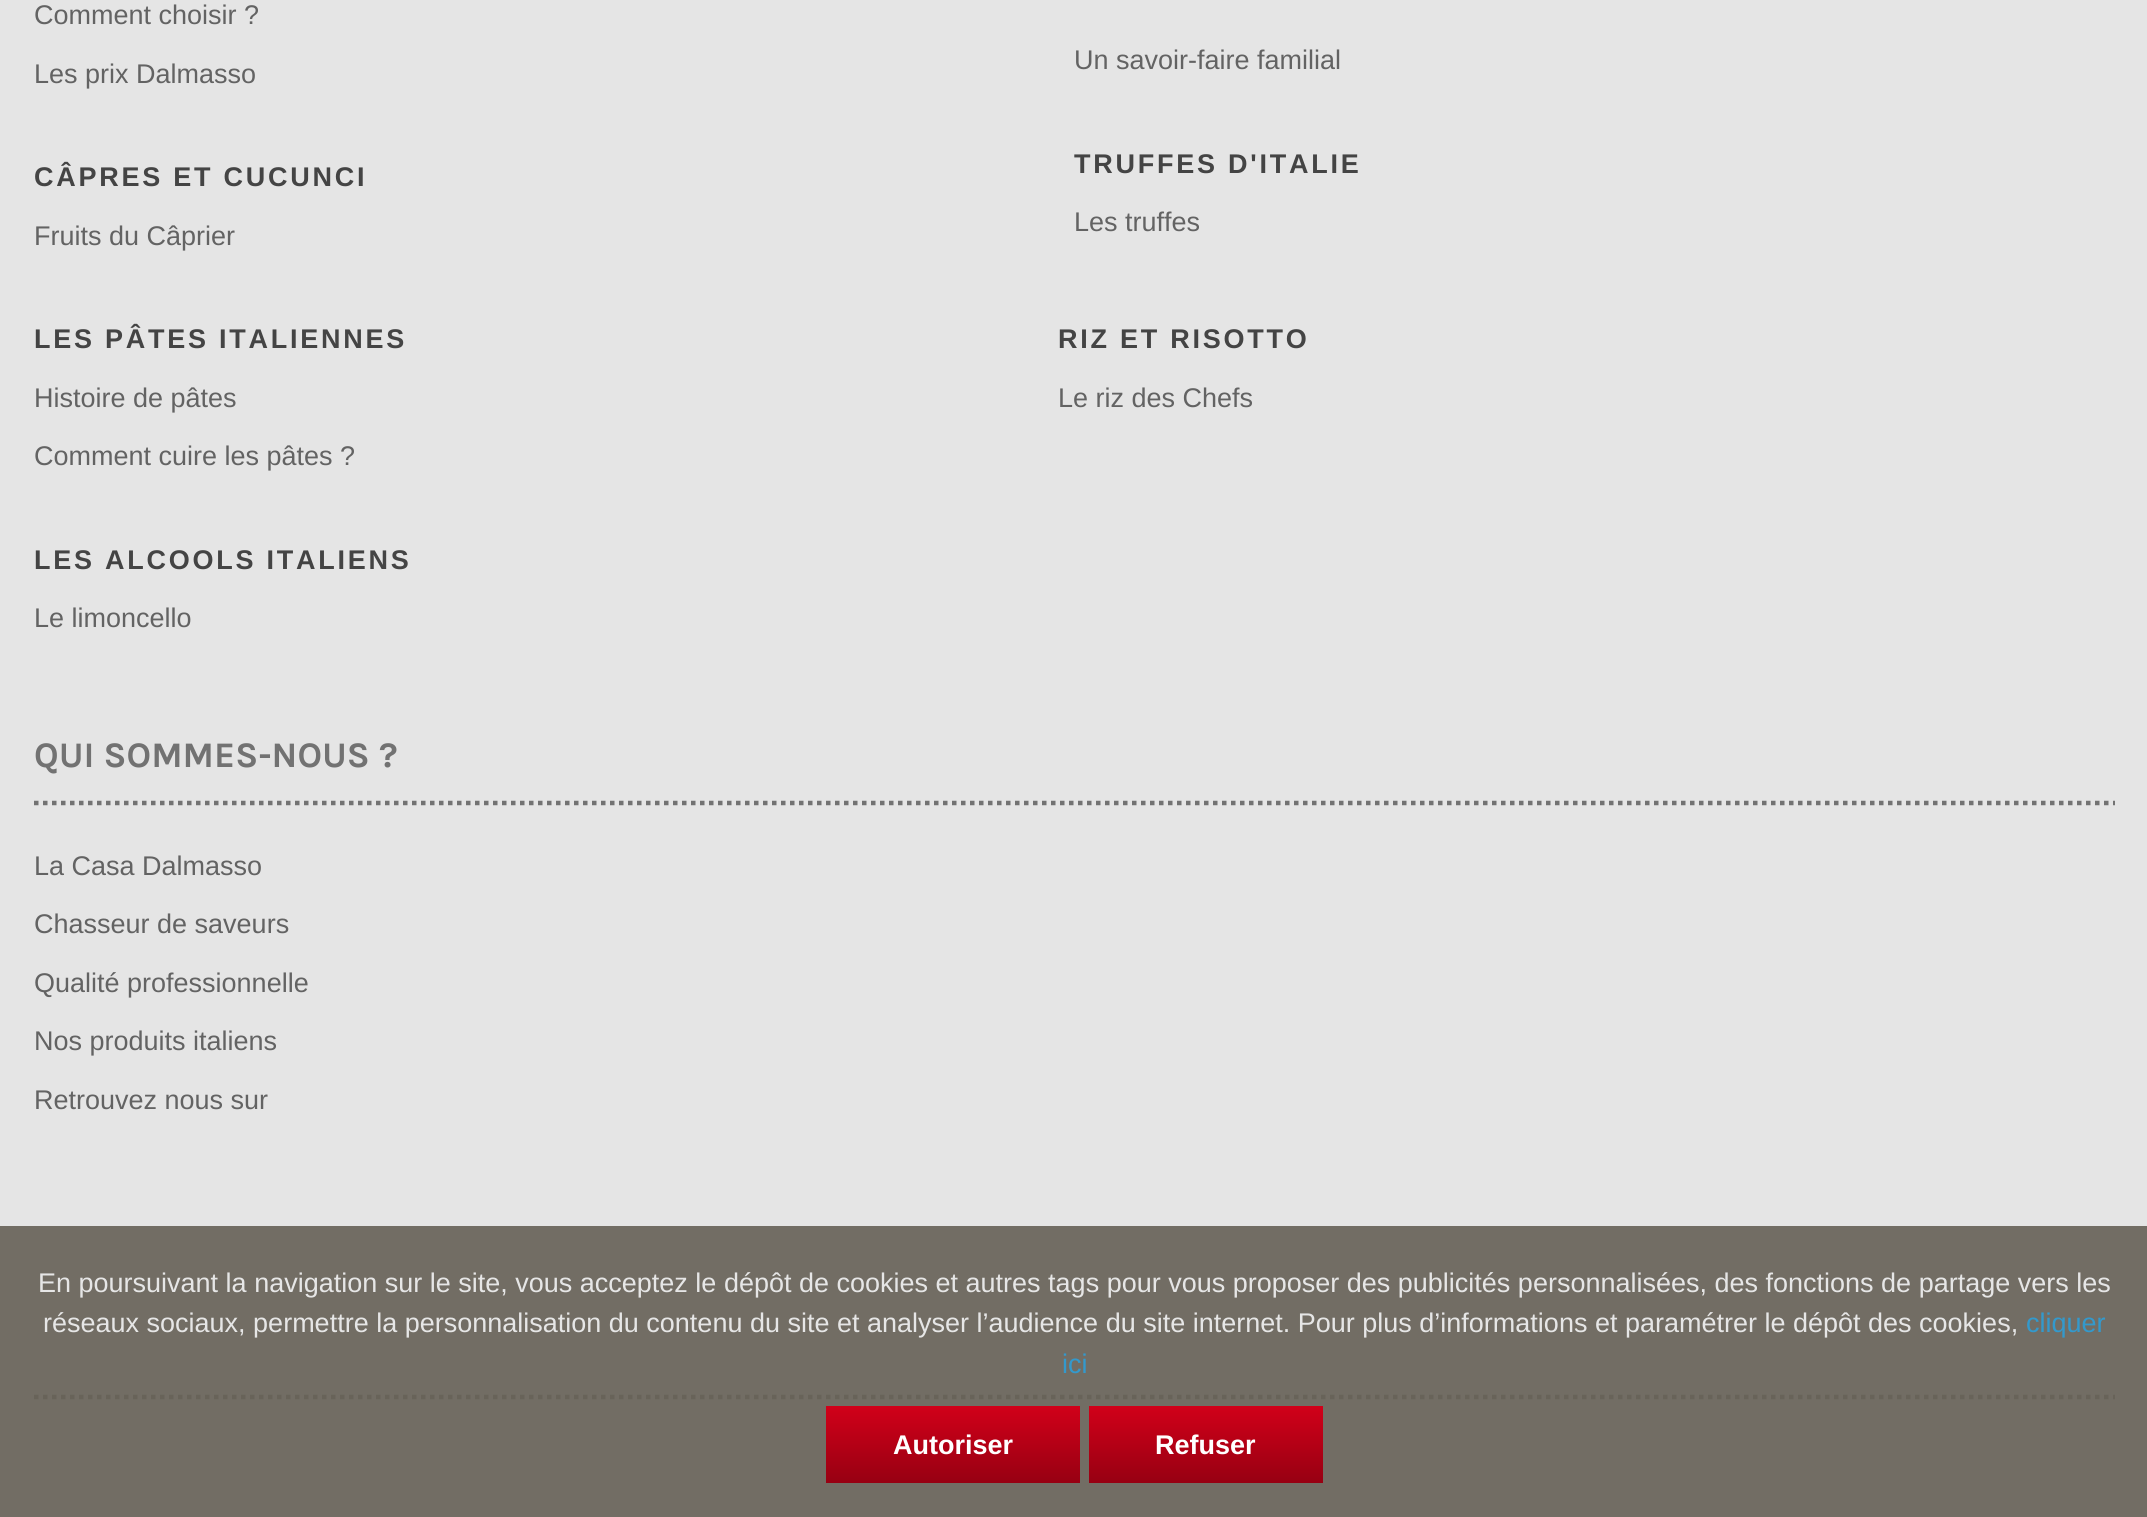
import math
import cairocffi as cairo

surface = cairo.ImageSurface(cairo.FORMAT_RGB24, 2147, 1517)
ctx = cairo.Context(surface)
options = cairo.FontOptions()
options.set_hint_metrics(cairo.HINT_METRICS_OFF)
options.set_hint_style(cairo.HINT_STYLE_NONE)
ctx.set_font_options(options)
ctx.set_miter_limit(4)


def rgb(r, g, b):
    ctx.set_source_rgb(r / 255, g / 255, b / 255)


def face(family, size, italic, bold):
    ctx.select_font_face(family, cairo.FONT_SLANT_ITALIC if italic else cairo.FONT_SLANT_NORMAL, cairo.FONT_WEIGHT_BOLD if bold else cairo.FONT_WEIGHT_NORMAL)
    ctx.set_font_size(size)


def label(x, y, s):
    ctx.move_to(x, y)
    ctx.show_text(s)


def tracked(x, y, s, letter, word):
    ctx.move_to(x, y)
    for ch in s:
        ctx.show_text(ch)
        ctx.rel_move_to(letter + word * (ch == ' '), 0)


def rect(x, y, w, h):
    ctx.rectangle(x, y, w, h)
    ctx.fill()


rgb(229, 229, 229)
ctx.paint()
rgb(114, 109, 100)
rect(0, 1226, 2147, 291)
face('Liberation Sans', 27, 0, 0)
rgb(99, 99, 99)
label(34, 24, 'Comment choisir ?')
label(34, 83, 'Les prix Dalmasso')
face('Liberation Sans', 27, 0, 1)
rgb(68, 68, 68)
tracked(34, 186, 'CÂPRES ET CUCUNCI', 2.75, 0)
face('Liberation Sans', 27, 0, 0)
rgb(99, 99, 99)
label(34, 245, 'Fruits du Câprier')
label(1074, 69, 'Un savoir-faire familial')
face('Liberation Sans', 27, 0, 1)
rgb(68, 68, 68)
tracked(1074, 173, 'TRUFFES D\'ITALIE', 2.75, 0)
face('Liberation Sans', 27, 0, 0)
rgb(99, 99, 99)
label(1074, 231, 'Les truffes')
face('Liberation Sans', 27, 0, 1)
rgb(68, 68, 68)
tracked(34, 348, 'LES PÂTES ITALIENNES', 2.75, 0)
face('Liberation Sans', 27, 0, 0)
rgb(99, 99, 99)
label(34, 407, 'Histoire de pâtes')
label(34, 465, 'Comment cuire les pâtes ?')
face('Liberation Sans', 27, 0, 1)
rgb(68, 68, 68)
tracked(1058, 348, 'RIZ ET RISOTTO', 2.75, 0)
face('Liberation Sans', 27, 0, 0)
rgb(99, 99, 99)
label(1058, 407, 'Le riz des Chefs')
face('Liberation Sans', 27, 0, 1)
rgb(68, 68, 68)
tracked(34, 569, 'LES ALCOOLS ITALIENS', 2.75, 0)
face('Liberation Sans', 27, 0, 0)
rgb(99, 99, 99)
label(34, 627, 'Le limoncello')
ctx.new_path()
ctx.move_to(34, 803)
ctx.line_to(2115, 803)
rgb(114, 114, 114)
ctx.set_line_width(4.5)
ctx.set_dash([4.5, 4.5])
ctx.stroke()
face('Karla', 36, 0, 1)
label(34, 767, 'QUI SOMMES-NOUS ?')
face('Liberation Sans', 27, 0, 0)
rgb(99, 99, 99)
label(34, 875, 'La Casa Dalmasso')
label(34, 933, 'Chasseur de saveurs')
label(34, 992, 'Qualité professionnelle')
label(34, 1050, 'Nos produits italiens')
label(34, 1109, 'Retrouvez nous sur')
ctx.new_path()
ctx.move_to(34, 1397)
ctx.line_to(2115, 1397)
rgb(104, 99, 89)
ctx.stroke()
rgb(230, 230, 230)
label(38, 1292, 'En poursuivant la navigation sur le site, vous acceptez le dépôt de cookies et autres tags pour vous proposer des publicités personnalisées, des fonctions de partage vers les')
label(43, 1332, 'réseaux sociaux, permettre la personnalisation du contenu du site et analyser l’audience du site internet. Pour plus d’informations et paramétrer le dépôt des cookies,')
rgb(51, 153, 204)
label(2026, 1332, 'cliquer')
label(1062, 1373, 'ici')
gradient = cairo.LinearGradient(953, 1406, 953, 1483)
gradient.add_color_stop_rgba(0, 0.82, 0, 0.098, 1)
gradient.add_color_stop_rgba(1, 0.592, 0, 0.071, 1)
ctx.set_source(gradient)
rect(826, 1406, 254, 77)
face('Liberation Sans', 27, 0, 1)
rgb(255, 255, 255)
label(893, 1454, 'Autoriser')
gradient = cairo.LinearGradient(1206, 1406, 1206, 1483)
gradient.add_color_stop_rgba(0, 0.82, 0, 0.098, 1)
gradient.add_color_stop_rgba(1, 0.592, 0, 0.071, 1)
ctx.set_source(gradient)
rect(1089, 1406, 234, 77)
rgb(255, 255, 255)
label(1155, 1454, 'Refuser')
surface.write_to_png('render.png')
